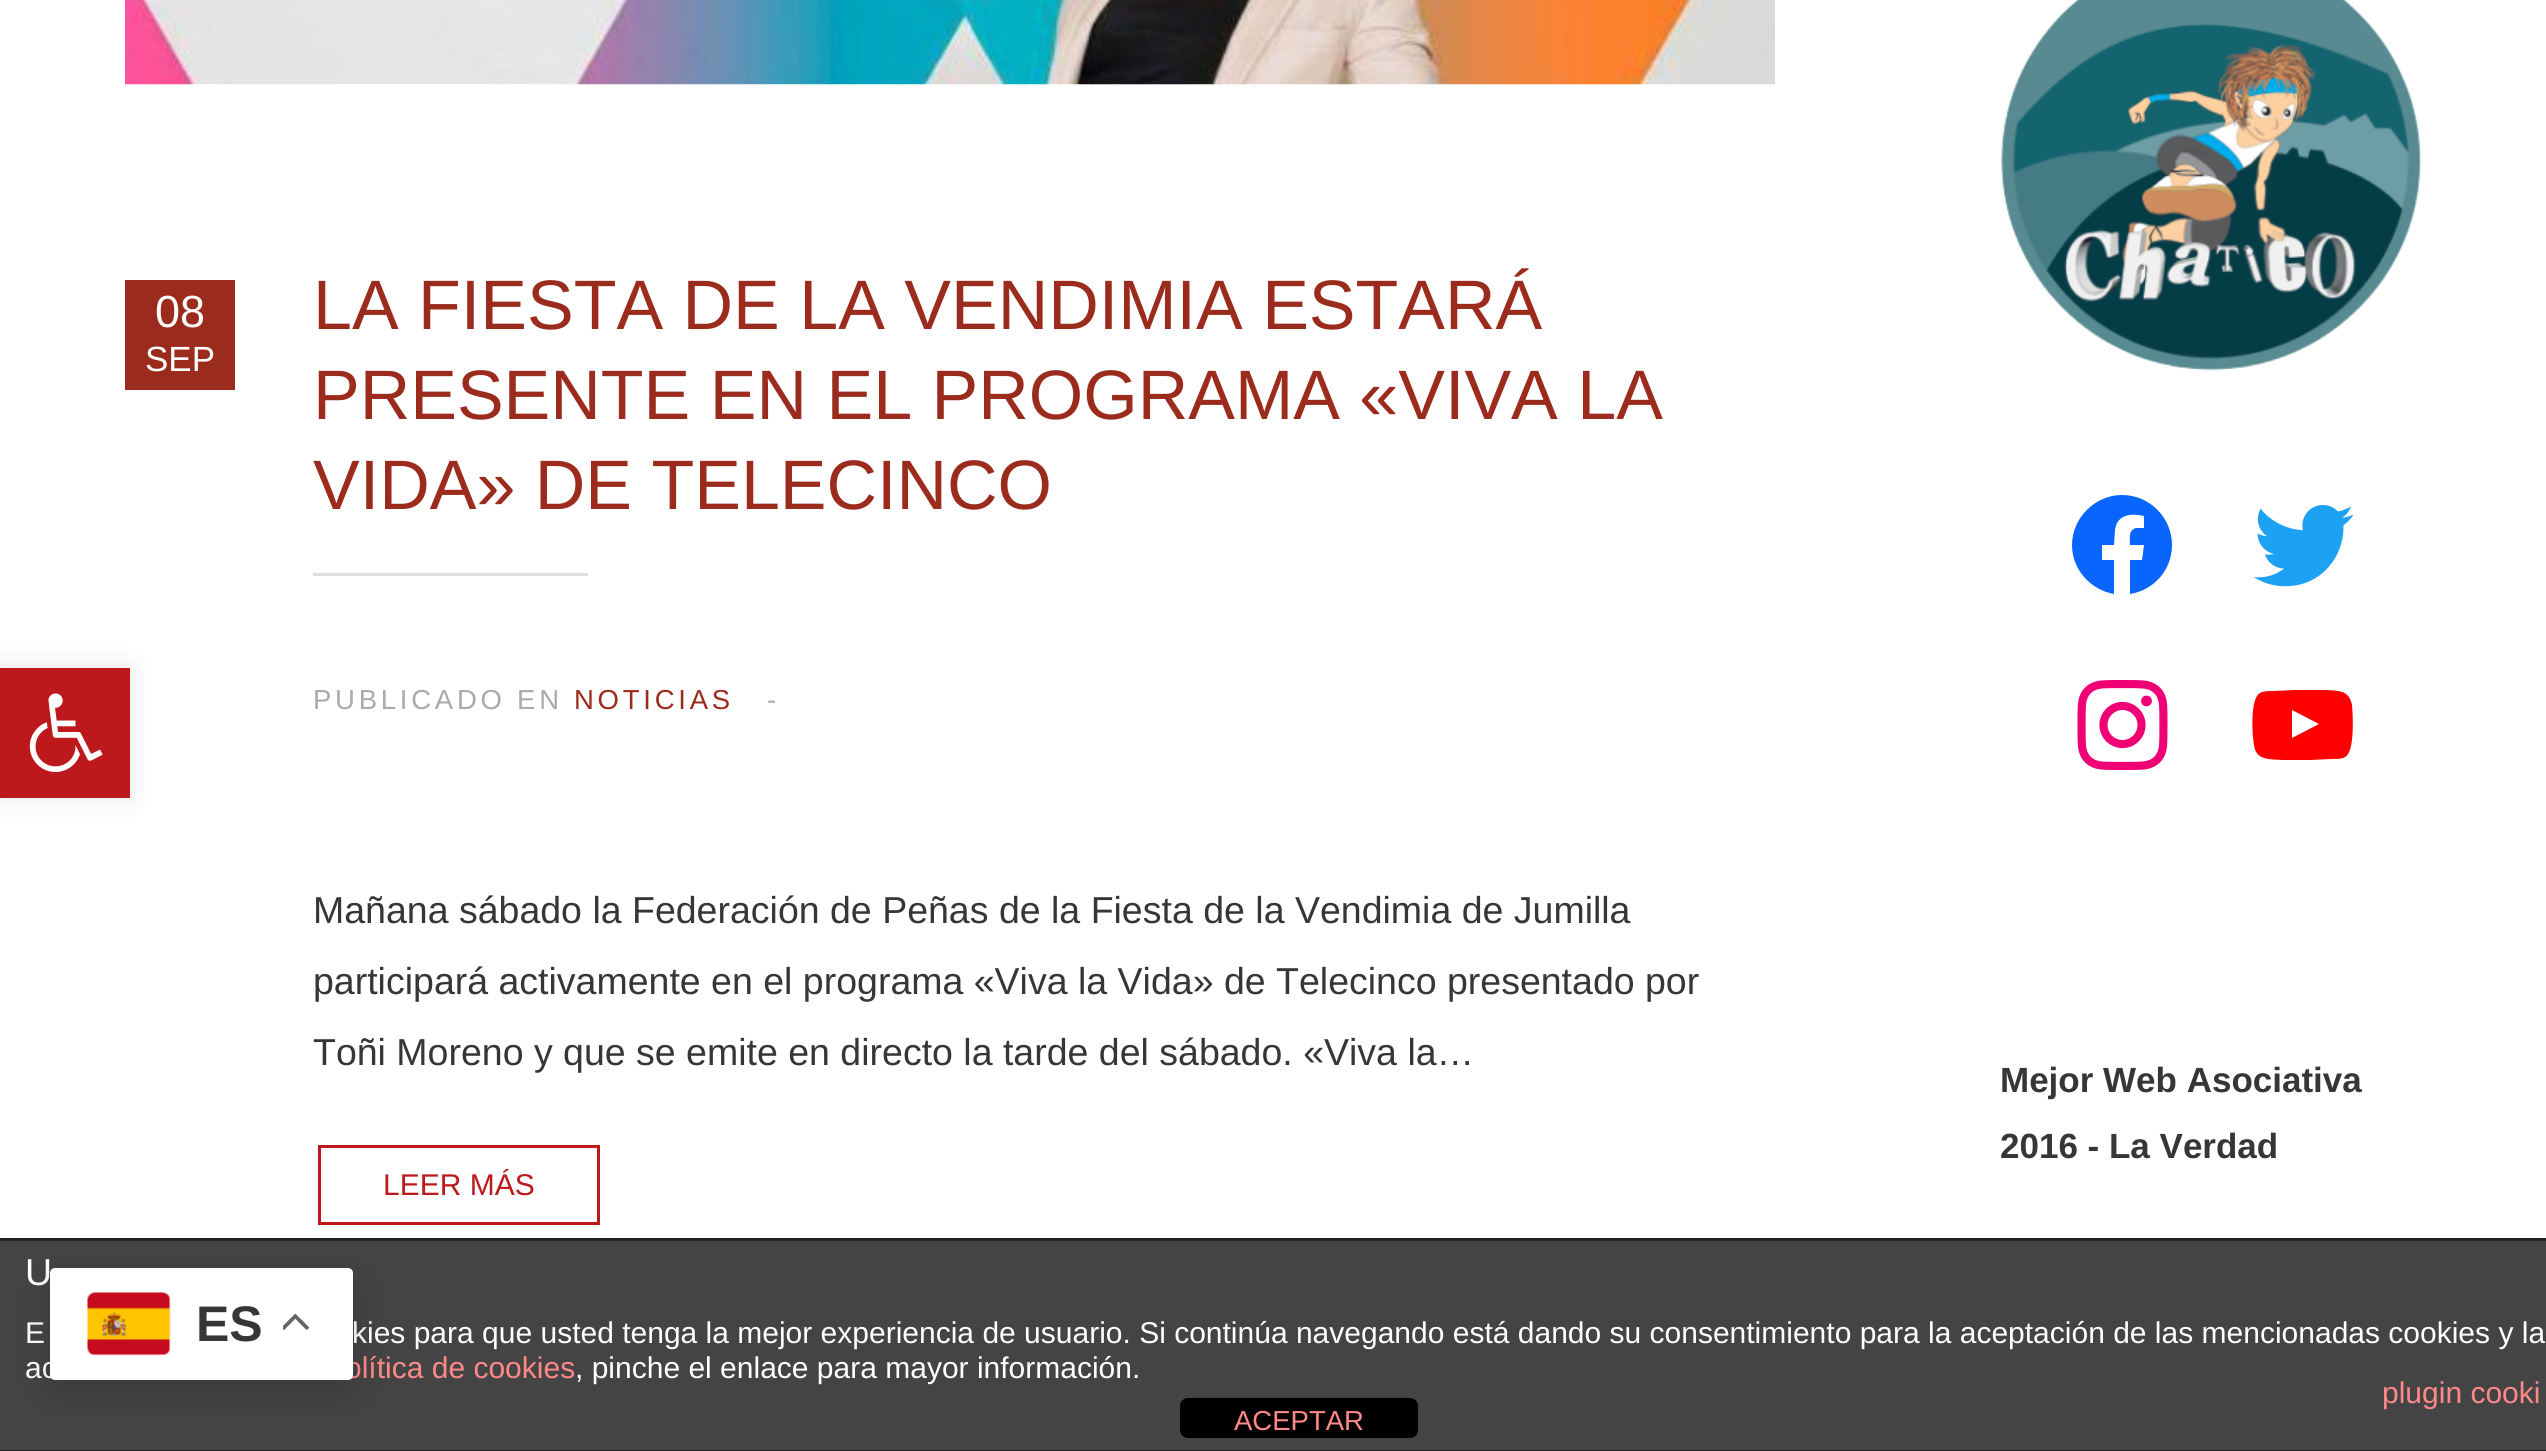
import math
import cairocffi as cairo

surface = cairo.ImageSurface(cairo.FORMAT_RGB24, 2546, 1451)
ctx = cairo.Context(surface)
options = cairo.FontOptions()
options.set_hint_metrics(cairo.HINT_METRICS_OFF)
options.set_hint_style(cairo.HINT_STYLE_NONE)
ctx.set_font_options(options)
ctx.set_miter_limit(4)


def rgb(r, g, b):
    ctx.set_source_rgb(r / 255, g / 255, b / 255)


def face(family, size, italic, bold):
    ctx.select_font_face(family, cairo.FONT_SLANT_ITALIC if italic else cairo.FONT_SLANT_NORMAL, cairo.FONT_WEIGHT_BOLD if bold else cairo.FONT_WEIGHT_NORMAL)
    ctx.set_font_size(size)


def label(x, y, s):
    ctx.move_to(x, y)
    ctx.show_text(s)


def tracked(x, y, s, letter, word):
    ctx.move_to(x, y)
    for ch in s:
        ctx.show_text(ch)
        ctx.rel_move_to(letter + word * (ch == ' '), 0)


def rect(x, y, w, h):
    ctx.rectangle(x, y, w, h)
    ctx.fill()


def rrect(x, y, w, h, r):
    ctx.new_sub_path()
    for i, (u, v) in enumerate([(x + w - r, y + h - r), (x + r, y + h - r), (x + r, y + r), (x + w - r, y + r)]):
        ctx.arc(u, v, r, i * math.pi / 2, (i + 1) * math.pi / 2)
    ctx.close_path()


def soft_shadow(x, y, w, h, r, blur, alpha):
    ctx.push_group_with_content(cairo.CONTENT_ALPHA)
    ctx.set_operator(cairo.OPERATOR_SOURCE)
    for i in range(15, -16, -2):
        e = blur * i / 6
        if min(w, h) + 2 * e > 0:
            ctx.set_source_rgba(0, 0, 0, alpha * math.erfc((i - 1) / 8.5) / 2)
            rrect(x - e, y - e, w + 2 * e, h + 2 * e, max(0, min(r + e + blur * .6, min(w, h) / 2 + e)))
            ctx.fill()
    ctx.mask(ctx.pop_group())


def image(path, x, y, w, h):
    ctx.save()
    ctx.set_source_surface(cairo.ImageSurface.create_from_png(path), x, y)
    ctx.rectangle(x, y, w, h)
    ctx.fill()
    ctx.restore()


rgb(255, 255, 255)
ctx.paint()
rgb(0, 0, 0)
soft_shadow(0, 668, 130, 130, 0, 12.5, 0.1)
rgb(189, 25, 28)
rect(0, 668, 130, 130)
image('image0.png', 29, 693, 74, 79)
image('image1.png', 125, 0, 1650, 85)
rgb(155, 43, 28)
rect(125, 280, 110, 110)
face('Liberation Sans', 45, 0, 0)
rgb(255, 255, 255)
label(155, 327, '08')
face('Liberation Sans', 35, 0, 0)
label(145, 371, 'SEP')
face('Liberation Sans', 70, 0, 0)
rgb(155, 43, 28)
label(313, 329, 'LA FIESTA DE LA VENDIMIA ESTARÁ')
label(313, 419, 'PRESENTE EN EL PROGRAMA «VIVA LA')
label(313, 509, 'VIDA» DE TELECINCO')
rgb(221, 221, 221)
rect(313, 573, 275, 3)
face('Liberation Sans', 27.5, 0, 0)
rgb(170, 170, 170)
tracked(313, 709, 'PUBLICADO EN', 3.75, 0)
rgb(155, 43, 28)
tracked(574, 709, 'NOTICIAS', 3.75, 0)
rgb(170, 170, 170)
tracked(767, 709, '-', 3.75, 0)
face('Liberation Sans', 37.5, 0, 0)
rgb(54, 54, 54)
label(313, 923, 'Mañana sábado la Federación de Peñas de la Fiesta de la Vendimia de Jumilla')
label(313, 994, 'participará activamente en el programa «Viva la Vida» de Telecinco presentado por')
label(313, 1065, 'Toñi Moreno y que se emite en directo la tarde del sábado. «Viva la…')
ctx.rectangle(319.5, 1146.5, 279, 77)
rgb(189, 25, 28)
ctx.set_line_width(3)
ctx.stroke()
face('Liberation Sans', 30, 0, 0)
label(383, 1195, 'LEER MÁS')
image('image2.png', 2001, 0, 421, 371)
rgb(8, 102, 255)
ctx.new_path()
ctx.move_to(2122, 495)
ctx.curve_to(2095, 495, 2072, 518, 2072, 545)
ctx.curve_to(2072, 570, 2091, 590, 2114, 594)
ctx.line_to(2114, 560)
ctx.line_to(2102, 560)
ctx.line_to(2102, 545)
ctx.line_to(2114, 545)
ctx.line_to(2115, 530)
ctx.curve_to(2117, 514, 2132, 513, 2144, 516)
ctx.line_to(2144, 528)
ctx.line_to(2136, 528)
ctx.curve_to(2128, 530, 2130, 539, 2130, 545)
ctx.line_to(2144, 545)
ctx.line_to(2142, 560)
ctx.line_to(2130, 560)
ctx.line_to(2130, 594)
ctx.curve_to(2154, 590, 2172, 570, 2172, 545)
ctx.curve_to(2172, 518, 2150, 495, 2122, 495)
ctx.close_path()
ctx.fill()
image('image3.png', 2253, 505, 101, 82)
image('image4.png', 2077, 680, 91, 90)
rgb(255, 0, 0)
ctx.new_path()
ctx.move_to(2352, 705)
ctx.curve_to(2349, 690, 2339, 691, 2326, 690)
ctx.line_to(2295, 690)
ctx.line_to(2273, 691)
ctx.curve_to(2270, 691, 2265, 691, 2262, 692)
ctx.curve_to(2259, 693, 2257, 695, 2256, 698)
ctx.curve_to(2251, 708, 2252, 734, 2254, 745)
ctx.curve_to(2256, 761, 2270, 759, 2283, 760)
ctx.line_to(2310, 760)
ctx.line_to(2332, 759)
ctx.curve_to(2335, 759, 2340, 759, 2343, 758)
ctx.curve_to(2346, 757, 2348, 755, 2349, 752)
ctx.curve_to(2354, 742, 2353, 716, 2352, 705)
ctx.close_path()
ctx.move_to(2292, 738)
ctx.line_to(2292, 710)
ctx.line_to(2319, 724)
ctx.close_path()
ctx.fill()
face('Liberation Sans', 35, 0, 1)
rgb(54, 54, 54)
label(2000, 1092, 'Mejor Web Asociativa')
label(2000, 1158, '2016 - La Verdad')
rgb(68, 68, 68)
rect(0, 1241, 2546, 209)
rgb(34, 34, 34)
rect(0, 1238, 2546, 3)
rect(0, 1450, 2546, 1)
face('Liberation Sans', 37.5, 0, 0)
rgb(255, 255, 255)
label(25, 1285, 'U')
face('Liberation Sans', 30, 0, 0)
label(25, 1343, 'E')
label(352, 1343, 'kies para que usted tenga la mejor experiencia de usuario. Si continúa navegando está dando su consentimiento para la aceptación de las mencionadas cookies y la')
label(25, 1378, 'ac')
rgb(255, 136, 136)
label(345, 1378, 'olítica de cookies')
rgb(255, 255, 255)
label(575, 1378, ', pinche el enlace para mayor información.')
rgb(255, 136, 136)
label(2382, 1403, 'plugin cooki')
rgb(0, 0, 0)
rrect(1180, 1398, 238, 40, 8)
ctx.fill()
face('Liberation Sans', 27.5, 0, 0)
rgb(255, 136, 136)
label(1234, 1430, 'ACEPTAR')
rgb(0, 0, 0)
soft_shadow(50, 1280, 303, 113, 5, 19, 0.15)
rgb(255, 255, 255)
rrect(50, 1268, 303, 112, 5)
ctx.fill()
image('image5.png', 87, 1292, 84, 64)
face('Liberation Sans', 50, 0, 1)
rgb(54, 54, 54)
label(196, 1341, 'ES')
image('image6.png', 283, 1313, 26, 17)
surface.write_to_png('render.png')
